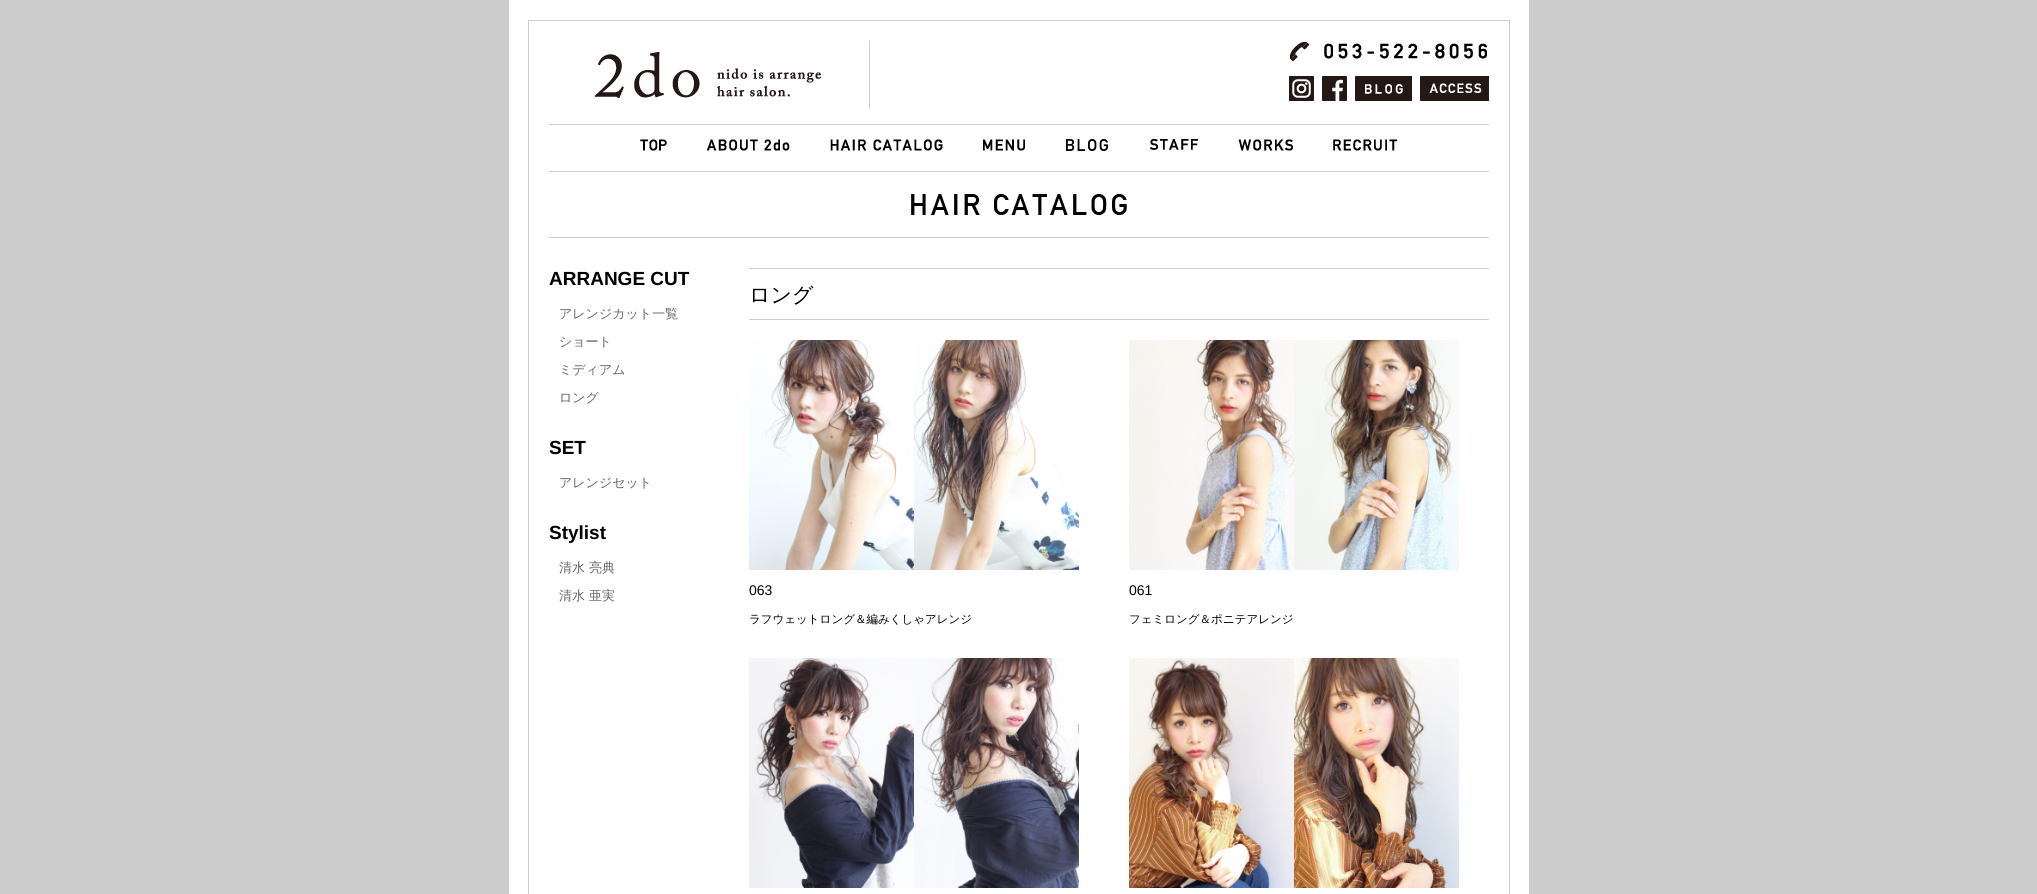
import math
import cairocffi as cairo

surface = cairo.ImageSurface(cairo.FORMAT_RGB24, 2037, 894)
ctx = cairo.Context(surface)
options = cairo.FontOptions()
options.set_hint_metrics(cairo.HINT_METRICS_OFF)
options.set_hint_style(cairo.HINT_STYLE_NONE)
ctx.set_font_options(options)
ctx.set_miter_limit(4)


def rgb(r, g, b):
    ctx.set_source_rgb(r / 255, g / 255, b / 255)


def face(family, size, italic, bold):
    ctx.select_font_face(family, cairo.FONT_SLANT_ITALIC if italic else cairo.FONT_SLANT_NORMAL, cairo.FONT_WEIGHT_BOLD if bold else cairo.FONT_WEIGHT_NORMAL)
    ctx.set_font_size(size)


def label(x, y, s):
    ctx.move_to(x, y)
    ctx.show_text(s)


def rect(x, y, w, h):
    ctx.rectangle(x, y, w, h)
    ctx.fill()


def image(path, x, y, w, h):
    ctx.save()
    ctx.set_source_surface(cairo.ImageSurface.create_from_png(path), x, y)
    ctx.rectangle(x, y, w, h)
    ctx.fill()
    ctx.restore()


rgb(204, 204, 204)
ctx.paint()
rgb(255, 255, 255)
rect(509, 0, 1020, 894)
ctx.rectangle(528.5, 20.5, 981, 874)
rgb(204, 204, 204)
ctx.set_line_width(1)
ctx.stroke()
rect(869, 41, 1, 68)
image('image0.png', 595, 52, 226, 46)
image('image1.png', 1290, 42, 197, 19)
image('image2.png', 1289, 76, 25, 25)
image('image3.png', 1322, 76, 25, 25)
image('image4.png', 1355, 76, 57, 25)
image('image5.png', 1420, 76, 69, 25)
rect(549, 124, 940, 1)
image('image6.png', 640, 139, 27, 12)
image('image7.png', 707, 139, 83, 12)
image('image8.png', 830, 139, 113, 12)
image('image9.png', 983, 139, 42, 12)
image('image10.png', 1066, 139, 42, 12)
image('image11.png', 1150, 139, 48, 11)
image('image12.png', 1238, 139, 55, 12)
image('image13.png', 1333, 139, 64, 12)
rect(549, 171, 940, 1)
rect(549, 237, 940, 1)
image('image14.png', 911, 194, 216, 21)
face('Liberation Sans', 19, 0, 1)
rgb(0, 0, 0)
label(549, 285, 'ARRANGE CUT')
face('WenQuanYi Zen Hei Medium', 13, 0, 0)
rgb(102, 102, 102)
label(559, 318, 'アレンジカット一覧')
label(559, 346, 'ショート')
label(559, 374, 'ミディアム')
label(559, 402, 'ロング')
face('Liberation Sans', 19, 0, 1)
rgb(0, 0, 0)
label(549, 454, 'SET')
face('WenQuanYi Zen Hei Medium', 13, 0, 0)
rgb(102, 102, 102)
label(559, 487, 'アレンジセット')
face('Liberation Sans', 19, 0, 1)
rgb(0, 0, 0)
label(549, 539, 'Stylist')
face('WenQuanYi Zen Hei Medium', 13, 0, 0)
rgb(102, 102, 102)
label(559, 572, '清水 亮典')
label(559, 600, '清水 亜実')
rgb(204, 204, 204)
rect(749, 268, 740, 1)
rect(749, 319, 740, 1)
face('WenQuanYi Zen Hei Medium', 21, 0, 0)
rgb(0, 0, 0)
label(749, 302, 'ロング')
image('image15.png', 749, 340, 165, 230)
image('image16.png', 914, 340, 165, 230)
face('Liberation Sans', 14, 0, 0)
label(749, 595, '063')
face('WenQuanYi Zen Hei Medium', 11.5, 0, 0)
label(749, 623, 'ラフウェットロング＆編みくしゃアレンジ')
image('image17.png', 1129, 340, 165, 230)
image('image18.png', 1294, 340, 165, 230)
face('Liberation Sans', 14, 0, 0)
label(1129, 595, '061')
face('WenQuanYi Zen Hei Medium', 11.5, 0, 0)
label(1129, 623, 'フェミロング＆ポニテアレンジ')
image('image19.png', 749, 658, 165, 230)
image('image20.png', 914, 658, 165, 230)
image('image21.png', 1129, 658, 165, 230)
image('image22.png', 1294, 658, 165, 230)
surface.write_to_png('render.png')
